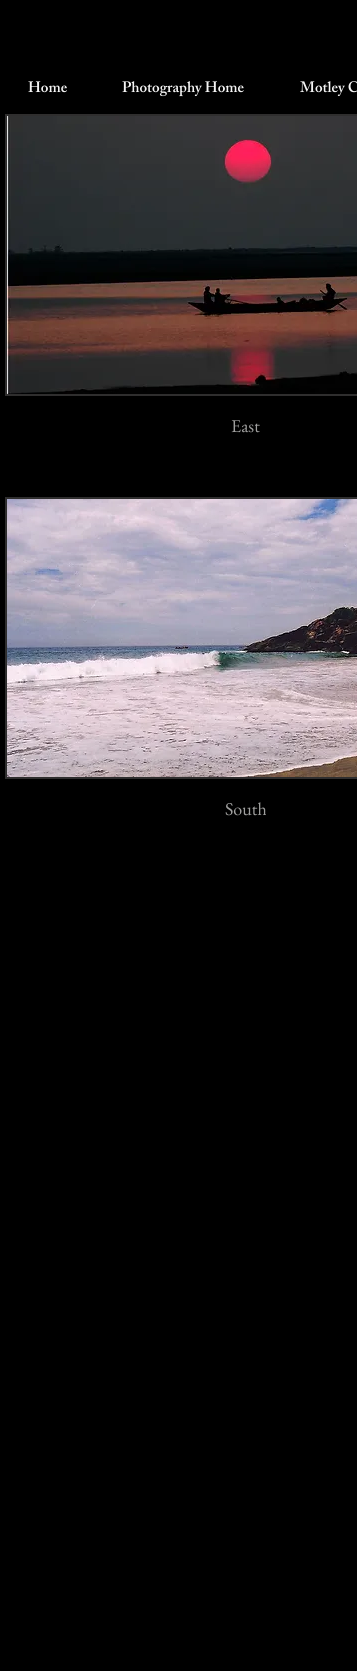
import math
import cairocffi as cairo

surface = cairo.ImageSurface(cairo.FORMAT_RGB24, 357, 1671)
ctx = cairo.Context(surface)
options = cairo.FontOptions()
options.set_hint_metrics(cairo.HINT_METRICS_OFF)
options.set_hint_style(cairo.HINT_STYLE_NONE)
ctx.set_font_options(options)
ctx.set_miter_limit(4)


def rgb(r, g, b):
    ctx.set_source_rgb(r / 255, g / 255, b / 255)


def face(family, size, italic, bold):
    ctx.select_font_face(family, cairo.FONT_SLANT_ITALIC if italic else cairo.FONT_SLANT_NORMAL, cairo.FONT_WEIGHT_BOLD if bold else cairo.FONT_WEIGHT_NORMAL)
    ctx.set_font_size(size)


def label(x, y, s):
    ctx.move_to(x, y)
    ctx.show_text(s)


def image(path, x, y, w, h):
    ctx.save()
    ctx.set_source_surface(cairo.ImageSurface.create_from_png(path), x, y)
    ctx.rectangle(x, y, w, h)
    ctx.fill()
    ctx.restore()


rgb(0, 0, 0)
ctx.paint()
face('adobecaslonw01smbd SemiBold', 15, 0, 0)
rgb(245, 245, 245)
label(28, 92, 'Home')
label(122, 92, 'Photography Home')
label(300, 92, 'Motley C')
ctx.rectangle(6, 115, 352, 280)
rgb(47, 46, 46)
ctx.stroke()
image('image0.png', 7, 116, 350, 278)
face('EB Garamond', 18, 0, 0)
rgb(160, 160, 159)
label(231, 432, 'East')
ctx.rectangle(6, 498, 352, 280)
rgb(47, 46, 46)
ctx.stroke()
image('image1.png', 7, 499, 350, 278)
rgb(160, 160, 159)
label(225, 815, 'South')
surface.write_to_png('render.png')
